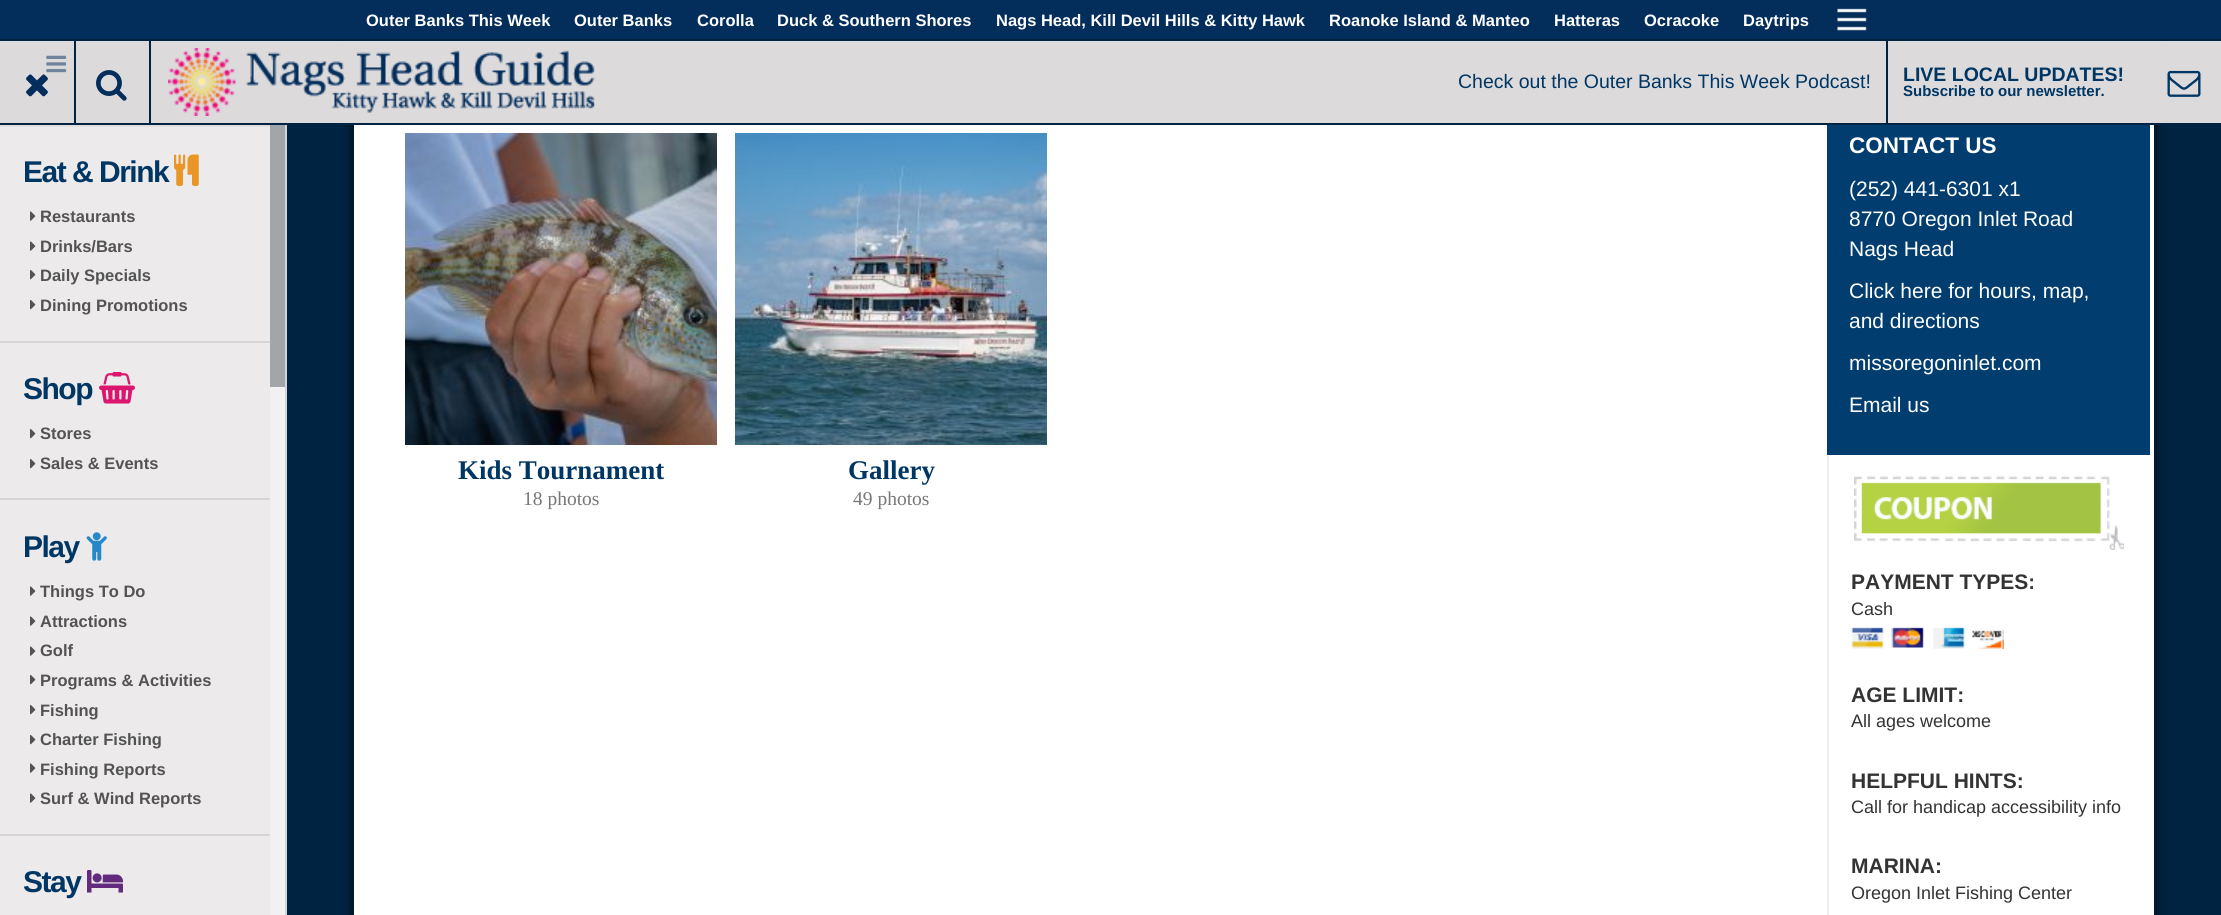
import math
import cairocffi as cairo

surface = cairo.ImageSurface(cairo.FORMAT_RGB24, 2221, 915)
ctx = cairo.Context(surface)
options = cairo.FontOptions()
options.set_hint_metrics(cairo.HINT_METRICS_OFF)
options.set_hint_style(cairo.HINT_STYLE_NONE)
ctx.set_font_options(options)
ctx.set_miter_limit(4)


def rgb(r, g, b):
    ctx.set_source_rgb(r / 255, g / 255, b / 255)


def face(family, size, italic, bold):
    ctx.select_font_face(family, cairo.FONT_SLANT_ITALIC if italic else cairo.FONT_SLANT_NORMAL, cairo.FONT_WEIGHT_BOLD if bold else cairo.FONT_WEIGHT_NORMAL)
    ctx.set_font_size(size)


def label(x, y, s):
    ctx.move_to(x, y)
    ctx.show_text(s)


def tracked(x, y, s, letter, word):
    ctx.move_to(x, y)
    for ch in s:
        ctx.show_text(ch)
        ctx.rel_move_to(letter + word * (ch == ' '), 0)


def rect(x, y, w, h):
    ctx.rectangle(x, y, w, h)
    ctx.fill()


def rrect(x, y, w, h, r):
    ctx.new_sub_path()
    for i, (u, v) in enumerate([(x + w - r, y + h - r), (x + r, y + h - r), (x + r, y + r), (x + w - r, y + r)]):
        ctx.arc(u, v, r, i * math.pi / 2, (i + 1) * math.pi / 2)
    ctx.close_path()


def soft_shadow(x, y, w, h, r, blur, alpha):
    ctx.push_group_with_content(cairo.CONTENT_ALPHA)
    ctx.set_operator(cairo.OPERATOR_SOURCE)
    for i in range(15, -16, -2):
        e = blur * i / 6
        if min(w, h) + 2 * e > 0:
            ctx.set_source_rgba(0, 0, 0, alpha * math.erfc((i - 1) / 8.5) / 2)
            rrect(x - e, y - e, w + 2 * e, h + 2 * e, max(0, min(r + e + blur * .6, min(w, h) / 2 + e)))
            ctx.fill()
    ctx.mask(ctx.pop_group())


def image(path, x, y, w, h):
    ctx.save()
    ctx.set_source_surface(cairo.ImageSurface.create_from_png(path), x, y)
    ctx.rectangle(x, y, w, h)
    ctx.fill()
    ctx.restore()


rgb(0, 35, 65)
ctx.paint()
rgb(0, 0, 0)
soft_shadow(354, -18, 1800, 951, 0, 6, 0.75)
rgb(3, 45, 91)
rect(0, 0, 2221, 39)
face('Liberation Sans', 16.5, 0, 1)
rgb(255, 255, 255)
label(366, 26, 'Outer Banks This Week')
label(574, 26, 'Outer Banks')
label(697, 26, 'Corolla')
label(777, 26, 'Duck & Southern Shores')
label(996, 26, 'Nags Head, Kill Devil Hills & Kitty Hawk')
label(1329, 26, 'Roanoke Island & Manteo')
label(1554, 26, 'Hatteras')
label(1644, 26, 'Ocracoke')
label(1743, 26, 'Daytrips')
image('image0.png', 1837, 8, 30, 23)
rgb(220, 218, 219)
rect(0, 41, 2221, 82)
rgb(0, 35, 65)
rect(344, 39, 1820, 2)
rect(344, 123, 1820, 2)
rect(74, 41, 2, 82)
image('image1.png', 46, 55, 21, 18)
image('image2.png', 26, 74, 22, 23)
rect(149, 41, 2, 82)
image('image3.png', 96, 70, 31, 31)
image('image4.png', 168, 48, 427, 68)
face('Liberation Sans', 19.5, 0, 0)
rgb(0, 54, 100)
label(1458, 88, 'Check out the Outer Banks This Week Podcast!')
rgb(0, 35, 65)
rect(1886, 41, 2, 82)
face('Liberation Sans', 19.5, 0, 1)
rgb(0, 54, 100)
label(1903, 81, 'LIVE LOCAL UPDATES!')
image('image5.png', 2167, 70, 34, 27)
face('Liberation Sans', 15, 0, 1)
label(1903, 96, 'Subscribe to our newsletter.')
rgb(236, 234, 234)
rect(0, 127, 270, 788)
rgb(214, 212, 212)
rect(285, 125, 2, 790)
rgb(224, 222, 222)
rect(0, 125, 270, 2)
rgb(214, 212, 212)
rect(0, 341, 270, 2)
face('Liberation Sans', 30, 0, 1)
rgb(0, 54, 100)
tracked(23, 182, 'Eat & Drink', -1.5, 0)
image('image6.png', 174, 154, 25, 32)
image('image7.png', 30, 211, 6, 10)
face('Liberation Sans', 16.5, 0, 1)
rgb(83, 83, 83)
label(40, 222, 'Restaurants')
image('image7.png', 30, 241, 6, 10)
label(40, 252, 'Drinks/Bars')
image('image8.png', 30, 270, 6, 10)
label(40, 281, 'Daily Specials')
image('image8.png', 30, 300, 6, 10)
label(40, 311, 'Dining Promotions')
rgb(214, 212, 212)
rect(0, 498, 270, 2)
face('Liberation Sans', 30, 0, 1)
rgb(0, 54, 100)
tracked(23, 399, 'Shop', -1.5, 0)
image('image9.png', 99, 372, 36, 32)
image('image8.png', 30, 429, 6, 10)
face('Liberation Sans', 16.5, 0, 1)
rgb(83, 83, 83)
label(40, 439, 'Stores')
image('image8.png', 30, 459, 6, 10)
label(40, 469, 'Sales & Events')
rgb(214, 212, 212)
rect(0, 834, 270, 2)
face('Liberation Sans', 30, 0, 1)
rgb(0, 54, 100)
tracked(23, 557, 'Play', -1.5, 0)
image('image10.png', 86, 532, 21, 29)
image('image7.png', 30, 586, 6, 10)
face('Liberation Sans', 16.5, 0, 1)
rgb(83, 83, 83)
label(40, 597, 'Things To Do')
image('image7.png', 30, 616, 6, 10)
label(40, 627, 'Attractions')
image('image7.png', 30, 646, 6, 10)
label(40, 656, 'Golf')
image('image8.png', 30, 675, 6, 10)
label(40, 686, 'Programs & Activities')
image('image8.png', 30, 705, 6, 10)
label(40, 716, 'Fishing')
image('image8.png', 30, 735, 6, 10)
label(40, 745, 'Charter Fishing')
image('image7.png', 30, 763, 6, 10)
label(40, 775, 'Fishing Reports')
image('image7.png', 30, 793, 6, 10)
label(40, 804, 'Surf & Wind Reports')
face('Liberation Sans', 30, 0, 1)
rgb(0, 54, 100)
tracked(23, 892, 'Stay', -1.5, 0)
image('image11.png', 87, 870, 36, 23)
rgb(241, 241, 241)
rect(270, 387, 15, 528)
rgb(160, 166, 169)
rect(270, 125, 15, 262)
rgb(255, 255, 255)
rect(354, 125, 1800, 790)
image('image12.png', 405, 133, 312, 312)
face('Liberation Serif', 27, 0, 1)
rgb(0, 54, 100)
label(458, 479, 'Kids Tournament')
face('Liberation Serif', 19.5, 0, 0)
rgb(119, 119, 119)
label(523, 505, '18 photos')
image('image13.png', 735, 133, 312, 312)
face('Liberation Serif', 27, 0, 1)
rgb(0, 54, 100)
label(848, 479, 'Gallery')
face('Liberation Serif', 19.5, 0, 0)
rgb(119, 119, 119)
label(853, 505, '49 photos')
rgb(1, 61, 111)
rect(1827, 125, 323, 330)
face('Liberation Sans', 22.5, 0, 1)
rgb(255, 255, 255)
label(1849, 153, 'CONTACT US')
face('Liberation Sans', 21, 0, 0)
label(1849, 196, '(252) 441-6301 x1')
label(1849, 226, '8770 Oregon Inlet Road')
label(1849, 256, 'Nags Head')
label(1849, 298, 'Click here for hours, map,')
label(1849, 328, 'and directions')
label(1849, 370, 'missoregoninlet.com')
label(1849, 412, 'Email us')
rgb(238, 238, 238)
rect(1827, 455, 2, 460)
image('image14.png', 1854, 476, 270, 74)
face('Liberation Sans', 21, 0, 1)
rgb(51, 51, 51)
label(1851, 589, 'PAYMENT TYPES:')
face('Liberation Sans', 18, 0, 0)
label(1851, 615, 'Cash')
image('image15.png', 1851, 627, 33, 22)
image('image16.png', 1891, 627, 33, 21)
image('image17.png', 1933, 627, 32, 22)
image('image18.png', 1972, 629, 32, 20)
face('Liberation Sans', 21, 0, 1)
label(1851, 702, 'AGE LIMIT:')
face('Liberation Sans', 18, 0, 0)
label(1851, 727, 'All ages welcome')
face('Liberation Sans', 21, 0, 1)
label(1851, 788, 'HELPFUL HINTS:')
face('Liberation Sans', 18, 0, 0)
label(1851, 813, 'Call for handicap accessibility info')
face('Liberation Sans', 21, 0, 1)
label(1851, 873, 'MARINA:')
face('Liberation Sans', 18, 0, 0)
label(1851, 899, 'Oregon Inlet Fishing Center')
surface.write_to_png('render.png')
